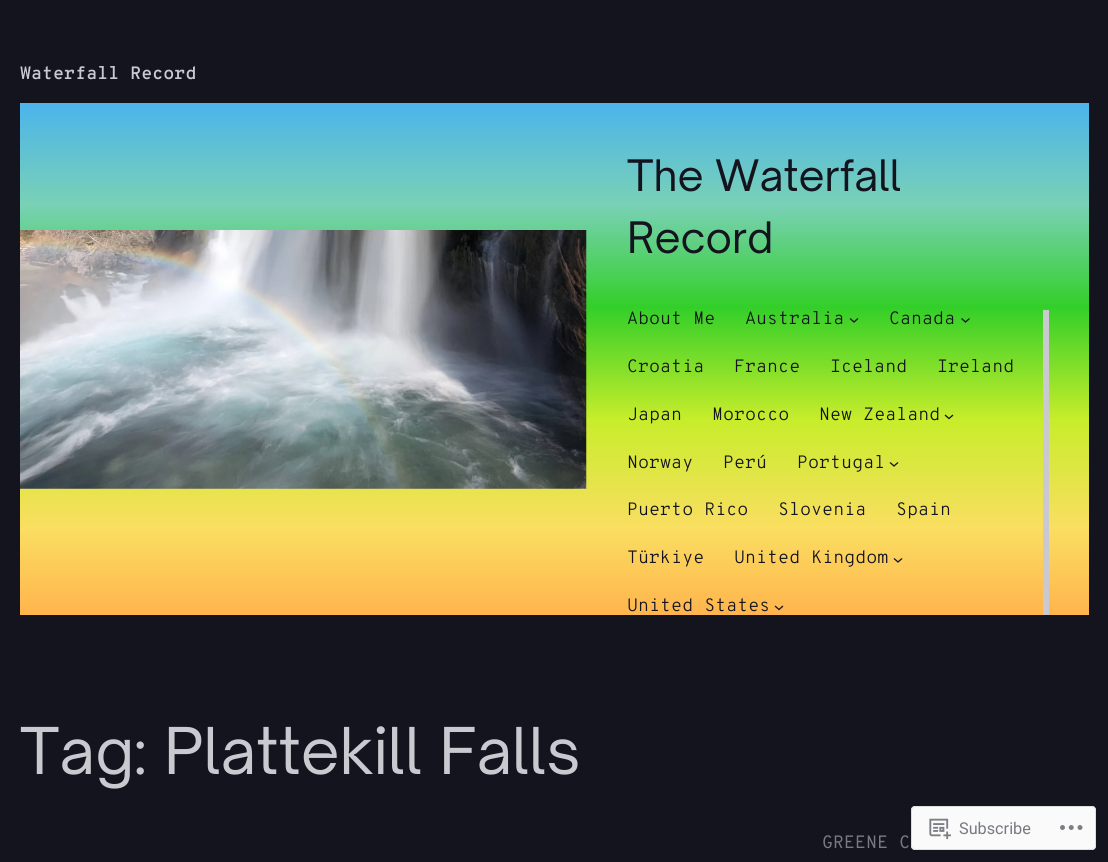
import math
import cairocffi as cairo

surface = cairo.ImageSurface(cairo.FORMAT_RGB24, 1108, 862)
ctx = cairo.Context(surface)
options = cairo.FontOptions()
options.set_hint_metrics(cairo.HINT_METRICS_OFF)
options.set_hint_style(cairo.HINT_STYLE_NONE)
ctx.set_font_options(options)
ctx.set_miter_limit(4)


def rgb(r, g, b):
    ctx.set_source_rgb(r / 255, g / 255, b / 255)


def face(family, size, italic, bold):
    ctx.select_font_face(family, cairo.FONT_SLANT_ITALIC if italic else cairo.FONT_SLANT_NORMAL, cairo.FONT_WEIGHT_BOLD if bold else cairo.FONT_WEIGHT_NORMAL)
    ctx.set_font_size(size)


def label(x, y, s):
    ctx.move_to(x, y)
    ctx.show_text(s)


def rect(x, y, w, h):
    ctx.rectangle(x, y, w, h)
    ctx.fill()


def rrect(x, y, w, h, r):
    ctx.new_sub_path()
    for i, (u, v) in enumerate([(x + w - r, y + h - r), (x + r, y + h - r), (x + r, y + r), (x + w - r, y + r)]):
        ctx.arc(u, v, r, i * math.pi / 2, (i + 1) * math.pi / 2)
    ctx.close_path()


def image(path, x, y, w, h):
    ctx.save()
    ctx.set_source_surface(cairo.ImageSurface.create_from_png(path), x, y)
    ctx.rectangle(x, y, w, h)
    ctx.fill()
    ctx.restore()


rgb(20, 20, 31)
ctx.paint()
face('Overpass Mono SemiBold', 17.9, 0, 0)
rgb(202, 201, 207)
label(20, 79, 'Waterfall Record')
gradient = cairo.LinearGradient(554, 102, 554, 615)
gradient.add_color_stop_rgba(0, 0.294, 0.706, 0.922, 1)
gradient.add_color_stop_rgba(0.2, 0.475, 0.82, 0.714, 1)
gradient.add_color_stop_rgba(0.4, 0.2, 0.812, 0.161, 1)
gradient.add_color_stop_rgba(0.62, 0.784, 0.929, 0.169, 1)
gradient.add_color_stop_rgba(0.83, 0.98, 0.871, 0.38, 1)
gradient.add_color_stop_rgba(1, 1, 0.706, 0.302, 1)
ctx.set_source(gradient)
rect(20, 103, 1069, 512)
image('image0.png', 20, 230, 567, 259)
face('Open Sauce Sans', 41.5, 0, 0)
rgb(20, 20, 31)
label(627, 191, 'The Waterfall')
label(627, 253, 'Record')
rgb(202, 201, 207)
rect(1043, 310, 6, 305)
face('Overpass Mono Light', 17.9, 0, 0)
rgb(20, 20, 31)
label(627, 324, 'About Me')
label(745, 324, 'Australia')
ctx.new_path()
ctx.move_to(850, 318.5)
ctx.line_to(854, 322)
ctx.line_to(858, 318.5)
ctx.set_line_width(1.3)
ctx.stroke()
label(889, 324, 'Canada')
ctx.new_path()
ctx.move_to(961.5, 318.5)
ctx.line_to(965.5, 322)
ctx.line_to(969.5, 318.5)
ctx.stroke()
label(627, 372, 'Croatia')
label(734, 372, 'France')
label(830, 372, 'Iceland')
label(937, 372, 'Ireland')
label(627, 420, 'Japan')
label(712, 420, 'Morocco')
label(819, 420, 'New Zealand')
ctx.new_path()
ctx.move_to(945, 415)
ctx.line_to(949, 418.5)
ctx.line_to(953, 415)
ctx.stroke()
label(627, 468, 'Norway')
label(723, 468, 'Perú')
label(797, 468, 'Portugal')
ctx.new_path()
ctx.move_to(890, 462.5)
ctx.line_to(894, 466)
ctx.line_to(898, 462.5)
ctx.stroke()
label(627, 515, 'Puerto Rico')
label(778, 515, 'Slovenia')
label(896, 515, 'Spain')
label(627, 563, 'Türkiye')
label(734, 563, 'United Kingdom')
ctx.new_path()
ctx.move_to(894, 558.5)
ctx.line_to(898, 562)
ctx.line_to(902, 558.5)
ctx.stroke()
label(627, 611, 'United States')
ctx.new_path()
ctx.move_to(775, 606)
ctx.line_to(779, 609.5)
ctx.line_to(783, 606)
ctx.stroke()
face('Open Sauce Sans', 61.75, 0, 0)
rgb(202, 201, 207)
label(20, 774, 'Tag: Plattekill Falls')
face('Overpass Mono', 17.9, 0, 0)
rgb(121, 121, 134)
label(822, 848, 'GREENE C')
ctx.set_source_rgba(1, 1, 1, 0.98)
rrect(911, 806, 185, 44, 4)
ctx.fill()
rrect(911.5, 806.5, 184, 43, 3.5)
ctx.set_source_rgba(0.863, 0.863, 0.871, 0.98)
ctx.set_line_width(1)
ctx.stroke()
image('image1.png', 929, 818, 22, 22)
face('Roboto', 16.25, 0, 0)
rgb(118, 122, 128)
label(959, 834, 'Subscribe')
image('image2.png', 1060, 825, 23, 5)
surface.write_to_png('render.png')
